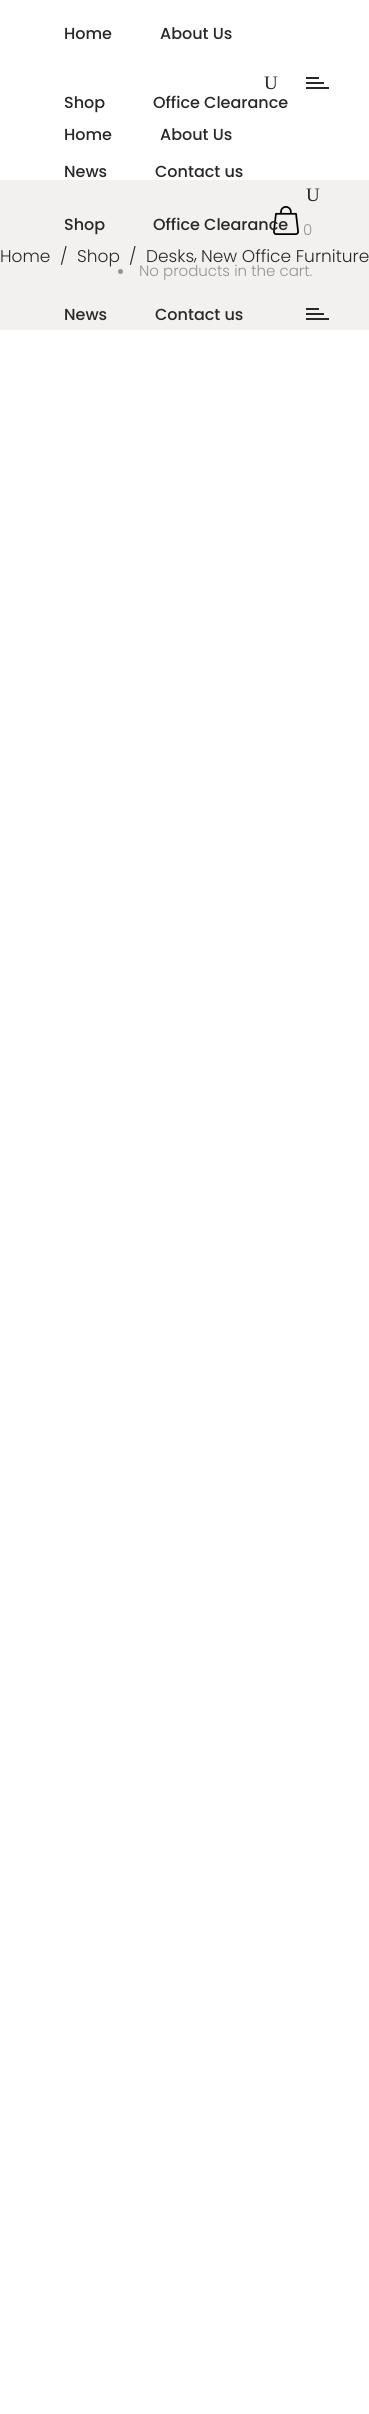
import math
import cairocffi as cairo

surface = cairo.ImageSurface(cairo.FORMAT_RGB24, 369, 2414)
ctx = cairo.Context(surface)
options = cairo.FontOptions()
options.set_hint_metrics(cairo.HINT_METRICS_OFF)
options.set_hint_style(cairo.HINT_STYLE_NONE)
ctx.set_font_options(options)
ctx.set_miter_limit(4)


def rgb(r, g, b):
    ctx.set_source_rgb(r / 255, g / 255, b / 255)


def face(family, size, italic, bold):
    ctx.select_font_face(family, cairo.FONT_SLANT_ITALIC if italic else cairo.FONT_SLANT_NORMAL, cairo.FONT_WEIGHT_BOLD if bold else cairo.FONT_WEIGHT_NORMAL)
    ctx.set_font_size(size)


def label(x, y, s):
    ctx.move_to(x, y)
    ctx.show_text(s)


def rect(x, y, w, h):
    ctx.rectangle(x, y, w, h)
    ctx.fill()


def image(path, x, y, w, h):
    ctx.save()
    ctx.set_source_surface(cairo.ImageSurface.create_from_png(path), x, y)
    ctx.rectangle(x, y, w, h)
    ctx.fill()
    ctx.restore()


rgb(255, 255, 255)
ctx.paint()
face('Poppins Medium', 16, 0, 0)
rgb(40, 40, 40)
label(64, 39, 'Home')
label(160, 39, 'About Us')
label(64, 108, 'Shop')
label(153, 108, 'Office Clearance')
label(64, 177, 'News')
label(155, 177, 'Contact us')
face('Liberation Serif', 19, 0, 0)
label(264, 89, 'U')
rect(306, 77, 13, 2)
rect(306, 82, 18, 2)
rect(306, 87, 23, 2)
face('Poppins Medium', 16, 0, 0)
label(64, 140, 'Home')
label(160, 140, 'About Us')
rgb(242, 241, 239)
rect(0, 180, 369, 150)
rgb(40, 40, 40)
label(64, 230, 'Shop')
image('image0.png', 273, 206, 26, 29)
label(153, 230, 'Office Clearance')
label(64, 320, 'News')
label(155, 320, 'Contact us')
face('Liberation Serif', 19, 0, 0)
label(306, 201, 'U')
face('Poppins Light', 15, 0, 0)
rgb(147, 147, 147)
label(303, 235, '0')
ctx.new_path()
ctx.arc(120.5, 271.5, 2.5, 0, 2 * math.pi)
ctx.fill()
label(139, 276, 'No products in the cart.')
rgb(40, 40, 40)
rect(306, 308, 13, 2)
rect(306, 313, 18, 2)
rect(306, 318, 23, 2)
face('Poppins Light', 17, 0, 0)
label(0, 262, 'Home')
label(60, 262, '/')
label(77, 262, 'Shop')
label(129, 262, '/')
label(146, 262, 'Desks')
label(194, 260, ',')
label(201, 262, 'New Office Furniture')
surface.write_to_png('render.png')
